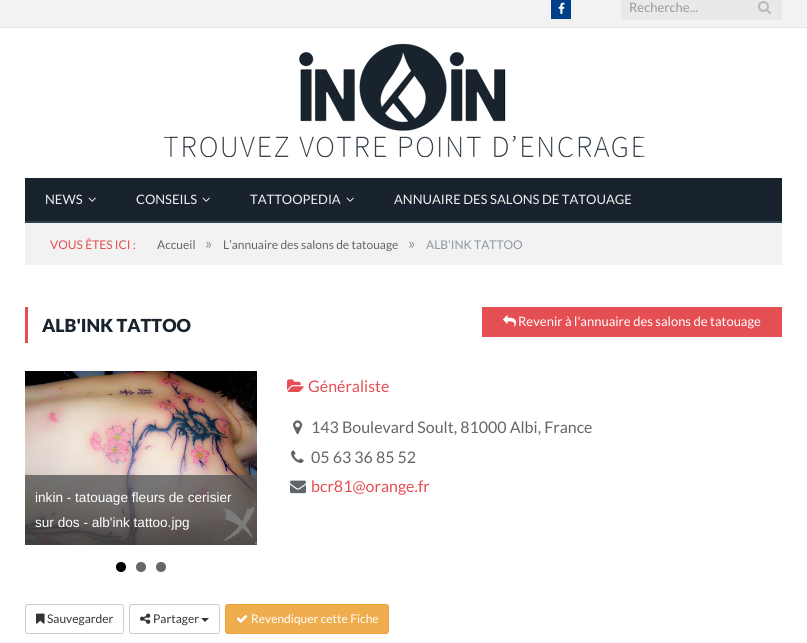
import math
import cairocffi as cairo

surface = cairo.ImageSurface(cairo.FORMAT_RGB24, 807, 643)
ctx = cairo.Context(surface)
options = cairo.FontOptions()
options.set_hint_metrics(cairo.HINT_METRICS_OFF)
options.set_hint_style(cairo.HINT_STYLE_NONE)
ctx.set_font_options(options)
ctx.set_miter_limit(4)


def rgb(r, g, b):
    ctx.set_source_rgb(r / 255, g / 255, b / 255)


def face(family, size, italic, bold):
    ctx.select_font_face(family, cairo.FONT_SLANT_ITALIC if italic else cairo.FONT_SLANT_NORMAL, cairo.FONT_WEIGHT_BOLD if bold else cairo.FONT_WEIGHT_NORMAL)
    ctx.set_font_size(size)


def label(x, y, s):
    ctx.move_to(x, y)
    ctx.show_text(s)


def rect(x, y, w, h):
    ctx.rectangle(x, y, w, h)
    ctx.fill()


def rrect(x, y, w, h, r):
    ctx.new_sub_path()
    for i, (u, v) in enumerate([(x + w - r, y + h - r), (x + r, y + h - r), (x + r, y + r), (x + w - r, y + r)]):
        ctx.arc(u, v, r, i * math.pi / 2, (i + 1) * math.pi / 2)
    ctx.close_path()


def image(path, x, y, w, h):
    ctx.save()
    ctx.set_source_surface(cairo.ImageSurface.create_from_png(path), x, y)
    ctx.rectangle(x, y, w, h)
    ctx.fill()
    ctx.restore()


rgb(255, 255, 255)
ctx.paint()
rgb(242, 242, 242)
rect(0, 0, 807, 27)
rgb(231, 231, 231)
rect(0, 27, 807, 1)
rgb(0, 64, 136)
rect(551, 0, 20, 19)
image('image0.png', 558, 2, 7, 12)
rgb(233, 233, 233)
rect(621, 0, 161, 20)
face('Lato', 13, 0, 0)
rgb(153, 153, 153)
label(629, 12, 'Recherche...')
image('image1.png', 758, 1, 13, 13)
image('image2.png', 163, 43, 482, 115)
rgb(25, 35, 45)
rect(25, 178, 757, 43)
rgb(47, 65, 84)
rect(25, 221, 757, 2)
rgb(239, 239, 239)
label(45, 204, 'NEWS')
image('image3.png', 88, 197, 8, 5)
label(136, 204, 'CONSEILS')
image('image3.png', 202, 197, 8, 5)
label(250, 204, 'TATTOOPEDIA')
image('image3.png', 346, 197, 8, 5)
label(394, 204, 'ANNUAIRE DES SALONS DE TATOUAGE')
rgb(242, 242, 242)
rect(25, 223, 757, 42)
face('Lato', 12, 0, 0)
rgb(229, 78, 83)
label(50, 249, 'VOUS ÊTES ICI :')
rgb(101, 101, 101)
label(157, 249, 'Accueil')
face('Lato', 16, 0, 0)
rgb(141, 151, 161)
label(205, 249, '»')
face('Lato', 12, 0, 0)
rgb(101, 101, 101)
label(223, 249, 'L’annuaire des salons de tatouage')
face('Lato', 16, 0, 0)
rgb(141, 151, 161)
label(408, 249, '»')
face('Lato', 12, 0, 0)
label(426, 249, 'ALB\'INK TATTOO')
rgb(229, 78, 83)
rect(25, 307, 3, 36)
face('Lato Black', 18, 0, 0)
rgb(25, 35, 45)
label(42, 332, 'ALB\'INK TATTOO')
rgb(229, 78, 83)
rect(482, 307, 300, 30)
image('image4.png', 503, 315, 13, 12)
face('Lato', 13, 0, 0)
rgb(255, 255, 255)
label(518, 326, 'Revenir à l\'annuaire des salons de tatouage')
image('image5.png', 287, 379, 17, 13)
face('Lato', 16, 0, 0)
rgb(229, 78, 83)
label(308, 392, 'Généraliste')
image('image6.png', 293, 420, 10, 15)
rgb(101, 101, 101)
label(311, 433, '143 Boulevard Soult, 81000 Albi, France')
image('image7.png', 291, 450, 13, 13)
label(311, 463, '05 63 36 85 52')
image('image8.png', 290, 480, 16, 14)
rgb(229, 78, 83)
label(311, 492, 'bcr81@orange.fr')
image('image9.png', 25, 371, 232, 174)
ctx.set_source_rgba(0.314, 0.314, 0.314, 0.75)
rect(25, 475, 232, 70)
face('Liberation Sans', 13.6, 0, 0)
rgb(255, 255, 255)
label(35, 502, 'inkin - tatouage fleurs de cerisier')
label(35, 527, 'sur dos - alb\'ink tattoo.jpg')
rgb(0, 0, 0)
ctx.new_path()
ctx.arc(121, 567, 5, 0, 2 * math.pi)
ctx.fill()
rgb(102, 102, 102)
ctx.arc(141, 567, 5, 0, 2 * math.pi)
ctx.fill()
ctx.arc(161, 567, 5, 0, 2 * math.pi)
ctx.fill()
rrect(25.5, 604.5, 98, 29, 2.5)
rgb(204, 204, 204)
ctx.set_line_width(1)
ctx.stroke()
image('image10.png', 36, 613, 9, 11)
face('Lato', 12, 0, 0)
rgb(51, 51, 51)
label(47, 623, 'Sauvegarder')
rrect(129.5, 604.5, 90, 29, 2.5)
rgb(204, 204, 204)
ctx.stroke()
image('image11.png', 140, 613, 11, 11)
rgb(51, 51, 51)
label(153, 623, 'Partager')
ctx.new_path()
ctx.move_to(201, 618)
ctx.line_to(209, 618)
ctx.line_to(205, 622)
ctx.close_path()
ctx.fill()
rgb(240, 173, 78)
rrect(225.5, 604.5, 163, 29, 2.5)
ctx.fill_preserve()
rgb(238, 162, 54)
ctx.stroke()
image('image12.png', 236, 615, 12, 8)
rgb(255, 255, 255)
label(251, 623, 'Revendiquer cette Fiche')
surface.write_to_png('render.png')
